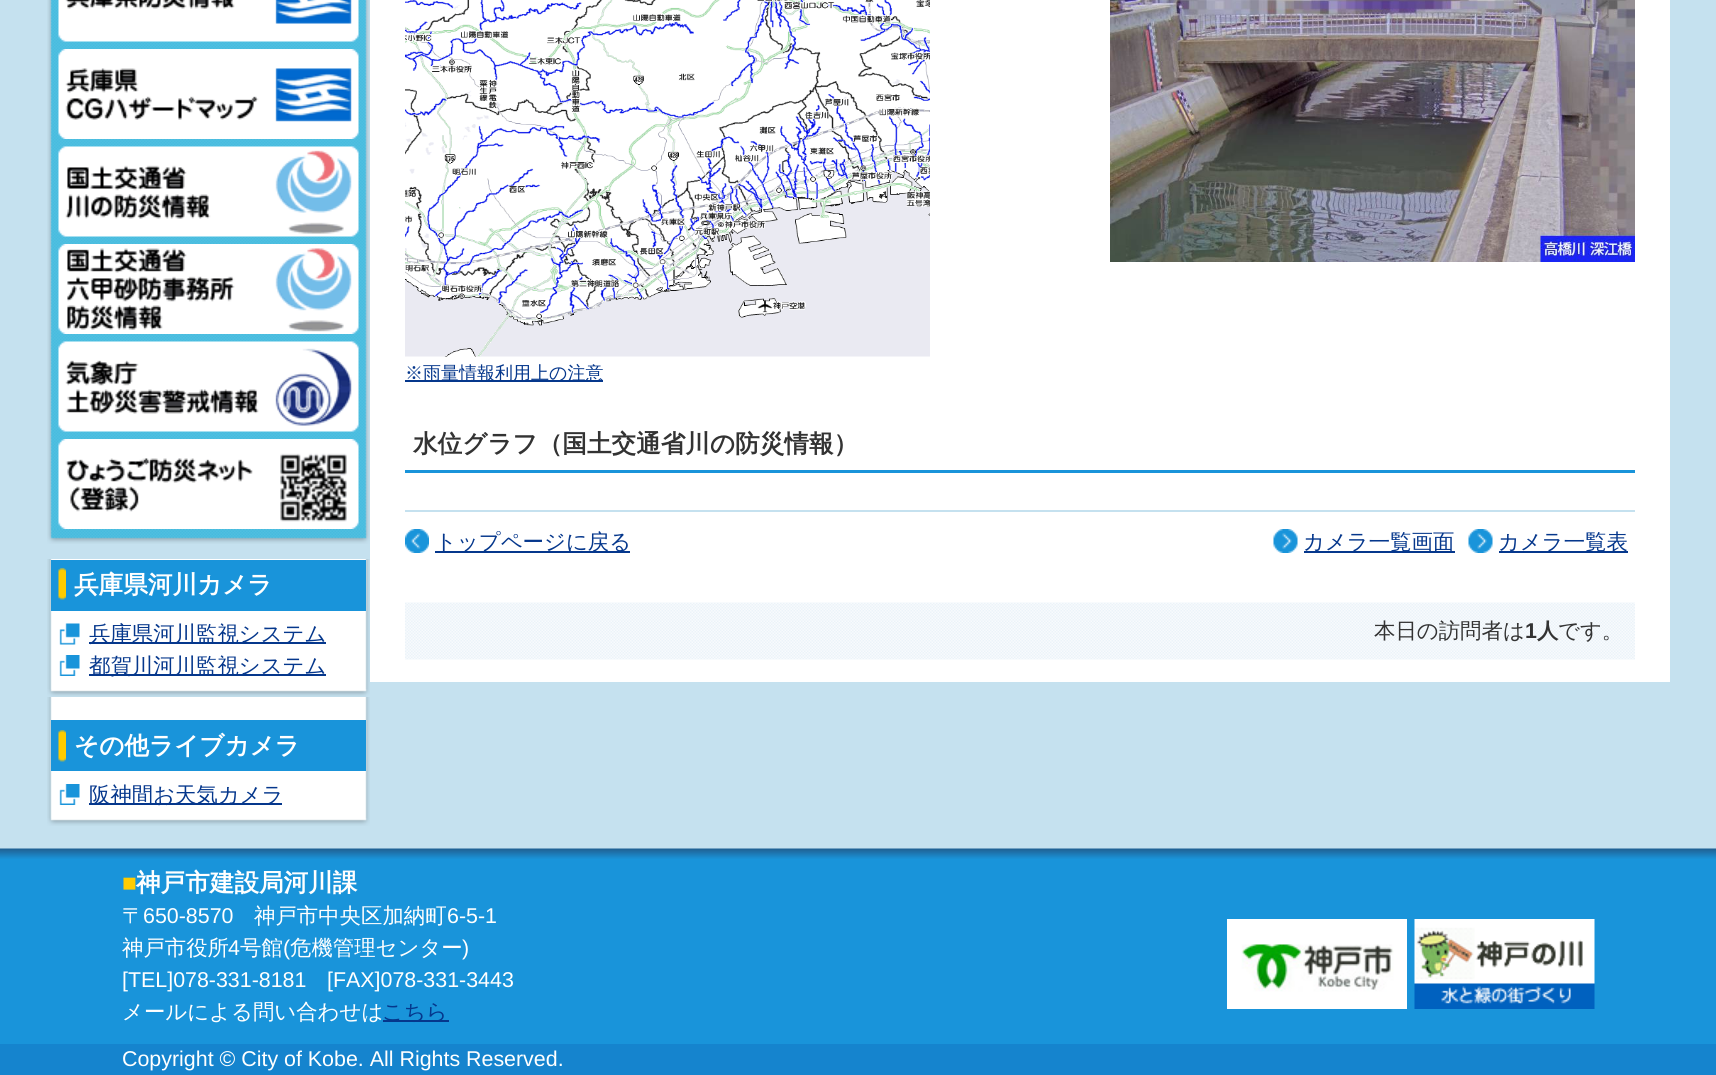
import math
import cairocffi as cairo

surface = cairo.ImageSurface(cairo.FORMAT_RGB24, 1716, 1075)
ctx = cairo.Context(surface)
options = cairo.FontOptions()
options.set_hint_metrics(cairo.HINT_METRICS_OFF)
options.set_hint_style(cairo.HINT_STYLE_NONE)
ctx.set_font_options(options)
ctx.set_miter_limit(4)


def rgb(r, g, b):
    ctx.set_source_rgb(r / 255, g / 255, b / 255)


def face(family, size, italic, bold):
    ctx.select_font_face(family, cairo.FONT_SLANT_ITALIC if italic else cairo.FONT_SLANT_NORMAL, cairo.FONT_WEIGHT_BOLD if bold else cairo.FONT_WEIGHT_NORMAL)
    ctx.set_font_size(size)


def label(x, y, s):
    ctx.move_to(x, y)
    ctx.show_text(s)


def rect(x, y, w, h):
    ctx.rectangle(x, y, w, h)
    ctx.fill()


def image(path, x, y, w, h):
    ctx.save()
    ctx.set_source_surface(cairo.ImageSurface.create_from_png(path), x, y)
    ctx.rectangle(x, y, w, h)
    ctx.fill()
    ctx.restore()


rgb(197, 225, 239)
ctx.paint()
rgb(255, 255, 255)
rect(370, 0, 1300, 682)
image('image0.png', 1110, 0, 525, 262)
image('image1.png', 405, 0, 525, 357)
rgb(5, 55, 140)
rect(405, 380, 198, 2)
face('WenQuanYi Zen Hei Medium', 18, 0, 0)
label(405, 379, '※雨量情報利用上の注意')
rgb(25, 148, 218)
rect(405, 470, 1230, 3)
face('WenQuanYi Zen Hei', 24.6, 0, 1)
rgb(51, 51, 51)
label(413, 452, '水位グラフ（国土交通省川の防災情報）')
rgb(197, 225, 239)
rect(405, 510, 1230, 2)
image('image2.png', 405, 529, 24, 24)
rgb(5, 55, 140)
rect(435, 551, 195, 2)
face('WenQuanYi Zen Hei Medium', 21.4, 0, 0)
label(435, 549, 'トップページに戻る')
image('image3.png', 1273, 529, 25, 24)
rect(1304, 551, 151, 2)
label(1303, 549, 'カメラ一覧画面')
image('image4.png', 1468, 529, 25, 24)
rect(1499, 551, 129, 2)
label(1498, 549, 'カメラ一覧表')
image('image5.png', 405, 602, 1230, 58)
rgb(51, 51, 51)
label(1374, 638, '本日の訪問者は')
face('Liberation Sans', 21.4, 0, 1)
label(1525, 638, '1')
face('WenQuanYi Zen Hei', 21.4, 0, 1)
label(1537, 638, '人')
face('WenQuanYi Zen Hei Medium', 21.4, 0, 0)
label(1558, 638, 'です。')
image('image6.png', 47, 0, 323, 529)
image('image7.png', 47, 529, 323, 15)
image('image8.png', 58, 0, 301, 42)
image('image9.png', 58, 49, 301, 90)
image('image10.png', 58, 146, 301, 91)
image('image11.png', 58, 244, 301, 90)
image('image12.png', 58, 341, 301, 91)
image('image13.png', 58, 439, 301, 90)
image('image14.png', 47, 559, 323, 259)
rgb(25, 148, 218)
rect(51, 560, 315, 51)
image('image15.png', 58, 568, 8, 32)
face('WenQuanYi Zen Hei', 24.6, 0, 1)
rgb(255, 255, 255)
label(74, 593, '兵庫県河川カメラ')
image('image16.png', 47, 689, 323, 8)
image('image17.png', 59, 623, 21, 22)
rgb(5, 55, 140)
rect(89, 642, 237, 2)
face('WenQuanYi Zen Hei Medium', 21.4, 0, 0)
label(89, 641, '兵庫県河川監視システム')
image('image18.png', 59, 655, 21, 21)
rect(89, 674, 237, 2)
label(89, 673, '都賀川河川監視システム')
rgb(25, 148, 218)
rect(51, 720, 315, 51)
image('image15.png', 58, 730, 8, 32)
face('WenQuanYi Zen Hei', 24.6, 0, 1)
rgb(255, 255, 255)
label(74, 754, 'その他ライブカメラ')
image('image16.png', 47, 818, 323, 8)
image('image18.png', 59, 784, 21, 21)
rgb(5, 55, 140)
rect(89, 803, 193, 2)
face('WenQuanYi Zen Hei Medium', 21.4, 0, 0)
label(89, 802, '阪神間お天気カメラ')
rgb(25, 148, 218)
rect(0, 859, 1716, 185)
image('image19.png', 0, 848, 1716, 11)
face('Liberation Sans', 24.6, 0, 1)
rgb(255, 204, 0)
label(122, 891, '■')
face('WenQuanYi Zen Hei', 24.6, 0, 1)
rgb(255, 255, 255)
label(136, 891, '神戸市建設局河川課')
face('WenQuanYi Zen Hei Medium', 21.4, 0, 0)
label(122, 923, '〒')
face('Liberation Sans', 21.4, 0, 0)
label(143, 923, '650-8570')
face('WenQuanYi Zen Hei Medium', 21.4, 0, 0)
label(254, 923, '神戸市中央区加納町')
face('Liberation Sans', 21.4, 0, 0)
label(447, 923, '6-5-1')
face('WenQuanYi Zen Hei Medium', 21.4, 0, 0)
label(122, 955, '神戸市役所')
face('Liberation Sans', 21.4, 0, 0)
label(228, 955, '4')
face('WenQuanYi Zen Hei Medium', 21.4, 0, 0)
label(240, 955, '号館')
face('Liberation Sans', 21.4, 0, 0)
label(283, 955, '(')
face('WenQuanYi Zen Hei Medium', 21.4, 0, 0)
label(290, 955, '危機管理センター')
face('Liberation Sans', 21.4, 0, 0)
label(462, 955, ')')
label(122, 987, '[TEL]078-331-8181')
label(327, 987, '[FAX]078-331-3443')
face('WenQuanYi Zen Hei Medium', 21.4, 0, 0)
label(122, 1019, 'メールによる問い合わせは')
rgb(5, 55, 140)
rect(383, 1020, 66, 2)
label(382, 1019, 'こちら')
image('image20.png', 1227, 919, 180, 90)
image('image21.png', 1414, 919, 181, 90)
rgb(21, 132, 206)
rect(0, 1044, 1716, 31)
face('Liberation Sans', 21.4, 0, 0)
rgb(255, 255, 255)
label(122, 1066, 'Copyright © City of Kobe. All Rights Reserved.')
surface.write_to_png('render.png')
